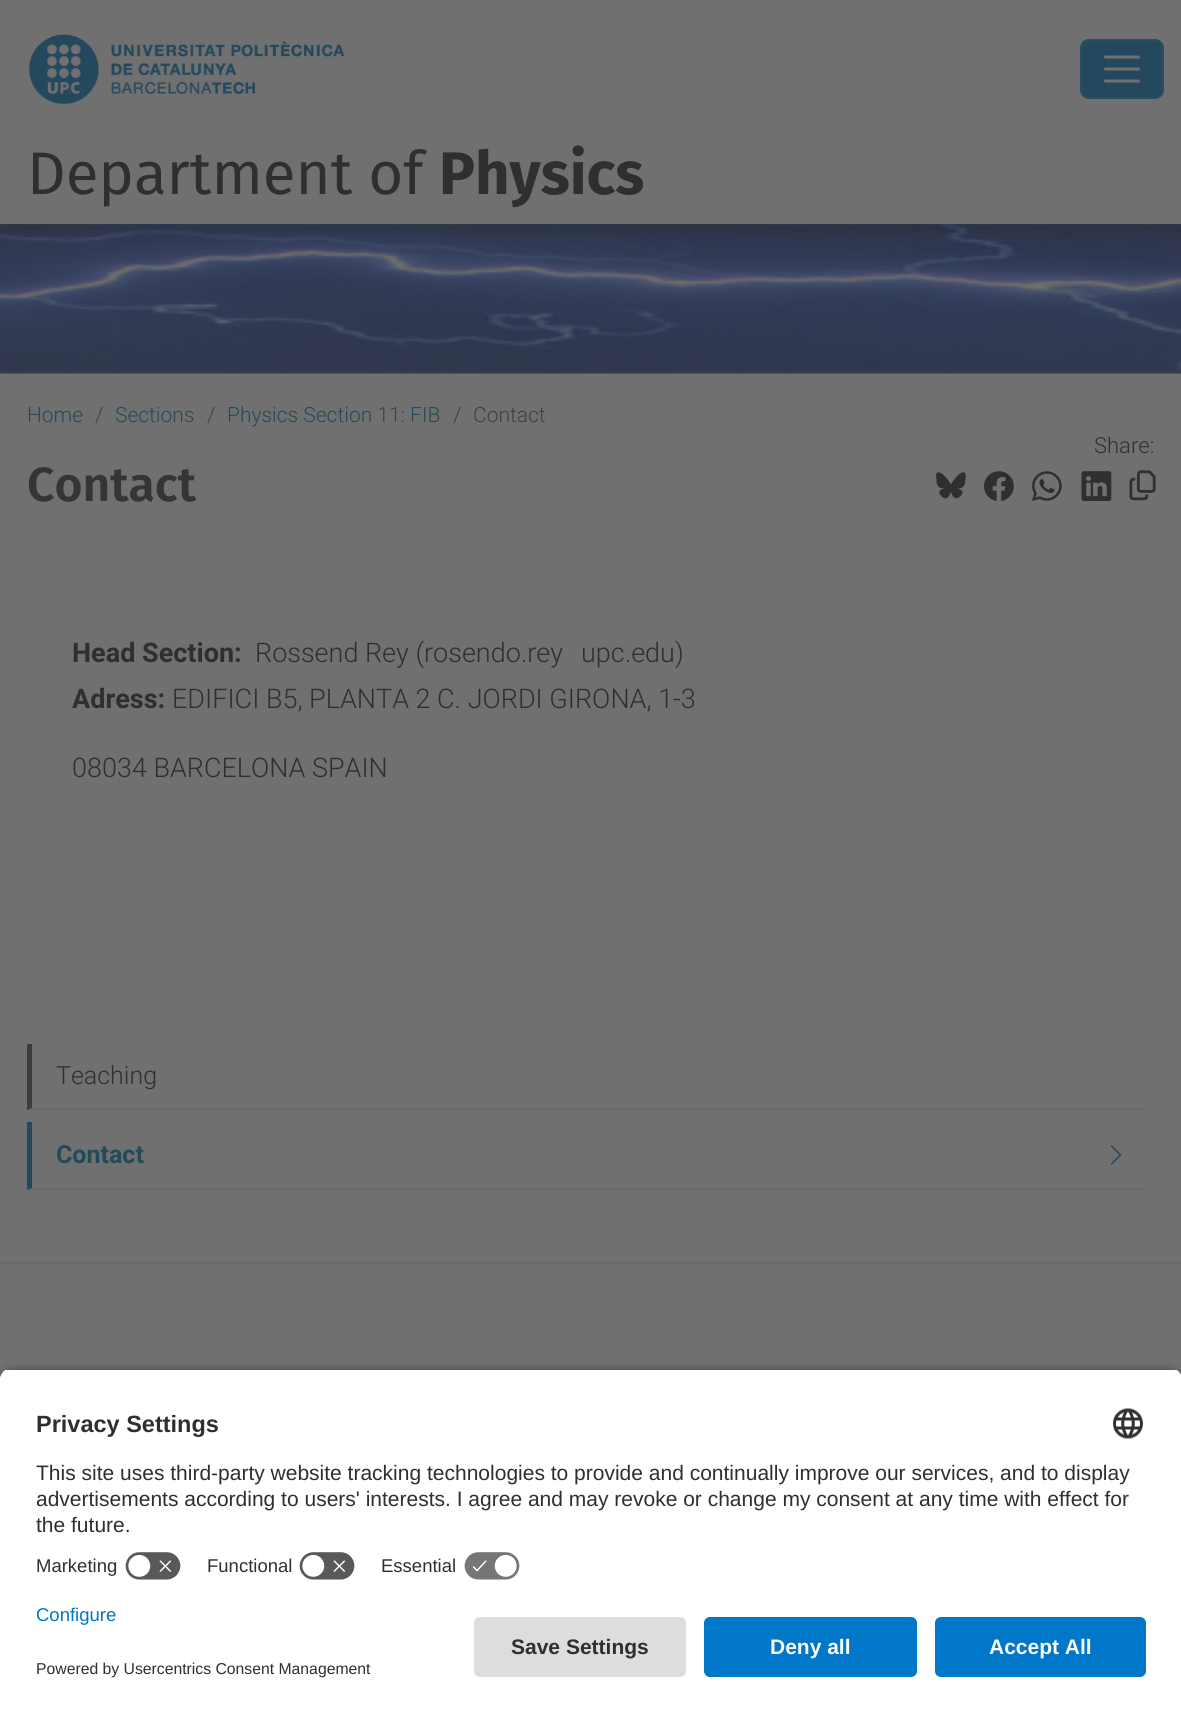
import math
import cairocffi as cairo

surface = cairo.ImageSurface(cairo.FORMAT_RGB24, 1181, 1712)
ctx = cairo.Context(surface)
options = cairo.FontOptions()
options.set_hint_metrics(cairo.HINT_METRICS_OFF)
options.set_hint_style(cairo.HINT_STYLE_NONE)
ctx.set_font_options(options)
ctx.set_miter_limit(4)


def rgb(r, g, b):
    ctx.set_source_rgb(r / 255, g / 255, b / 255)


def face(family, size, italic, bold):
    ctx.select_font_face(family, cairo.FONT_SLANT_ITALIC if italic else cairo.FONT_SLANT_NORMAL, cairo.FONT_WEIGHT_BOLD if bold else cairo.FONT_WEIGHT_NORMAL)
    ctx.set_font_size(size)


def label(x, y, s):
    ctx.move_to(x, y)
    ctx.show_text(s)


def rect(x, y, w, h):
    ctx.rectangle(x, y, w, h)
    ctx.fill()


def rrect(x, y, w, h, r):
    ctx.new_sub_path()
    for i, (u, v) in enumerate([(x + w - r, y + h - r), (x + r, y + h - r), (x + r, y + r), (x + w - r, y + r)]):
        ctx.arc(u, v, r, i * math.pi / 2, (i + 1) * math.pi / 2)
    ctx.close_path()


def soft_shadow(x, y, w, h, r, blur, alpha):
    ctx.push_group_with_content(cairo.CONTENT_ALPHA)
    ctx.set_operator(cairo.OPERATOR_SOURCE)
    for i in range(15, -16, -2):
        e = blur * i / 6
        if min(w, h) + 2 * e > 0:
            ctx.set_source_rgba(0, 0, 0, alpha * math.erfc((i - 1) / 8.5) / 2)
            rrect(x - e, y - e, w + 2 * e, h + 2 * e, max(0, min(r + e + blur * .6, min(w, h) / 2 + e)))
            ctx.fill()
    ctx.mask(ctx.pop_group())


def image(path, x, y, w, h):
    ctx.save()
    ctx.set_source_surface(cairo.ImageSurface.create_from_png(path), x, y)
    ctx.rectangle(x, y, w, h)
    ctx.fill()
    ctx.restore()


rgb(112, 112, 112)
ctx.paint()
image('image0.png', 29, 34, 316, 70)
rgb(36, 73, 94)
rrect(1080, 39, 84, 60, 9)
ctx.fill()
rrect(1081, 40, 82, 58, 8)
ctx.set_source_rgba(0.439, 0.439, 0.439, 0.1)
ctx.stroke()
ctx.new_path()
ctx.move_to(1105.5, 57)
ctx.line_to(1138.5, 57)
ctx.move_to(1105.5, 69)
ctx.line_to(1138.5, 69)
ctx.move_to(1105.5, 81)
ctx.line_to(1138.5, 81)
rgb(112, 112, 112)
ctx.set_line_width(3)
ctx.set_line_cap(cairo.LINE_CAP_ROUND)
ctx.stroke()
image('image1.png', 0, 224, 1181, 150)
rgb(36, 36, 36)
soft_shadow(0, 149, 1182, 85, 0, 6, 0.2)
rgb(112, 112, 112)
rect(0, 143, 1181, 81)
face('Fira Sans', 60, 0, 0)
rgb(46, 47, 48)
label(27, 194, 'Department of')
face('Fira Sans', 60, 0, 1)
label(439, 194, 'Physics')
face('Roboto Light', 21, 0, 0)
rgb(36, 73, 89)
label(27, 422, 'Home')
rgb(62, 63, 64)
label(95, 422, '/')
rgb(36, 73, 89)
label(115, 422, 'Sections')
rgb(62, 63, 64)
label(207, 422, '/')
rgb(36, 73, 89)
label(227, 422, 'Physics Section 11: FIB')
rgb(62, 63, 64)
label(453, 422, '/')
label(473, 422, 'Contact')
face('Roboto Light', 22, 0, 0)
rgb(46, 47, 48)
label(1094, 453, 'Share:')
image('image2.png', 936, 472, 30, 27)
image('image3.png', 984, 471, 30, 30)
image('image4.png', 1032, 471, 30, 30)
image('image5.png', 1081, 471, 31, 30)
image('image6.png', 1129, 470, 27, 31)
face('Fira Sans SemiBold', 48, 0, 0)
rgb(51, 53, 55)
label(27, 501, 'Contact')
face('Roboto', 27, 0, 1)
rgb(46, 47, 48)
label(72, 662, 'Head Section:')
face('Roboto Light', 27, 0, 0)
label(255, 662, 'Rossend Rey (rosendo.rey')
label(581, 662, 'upc.edu)')
face('Roboto', 27, 0, 1)
label(72, 708, 'Adress:')
face('Roboto Light', 27, 0, 0)
label(172, 708, 'EDIFICI B5, PLANTA 2 C. JORDI GIRONA, 1-3')
label(72, 777, '08034 BARCELONA SPAIN')
rgb(102, 104, 105)
ctx.new_path()
ctx.move_to(1143, 1110)
ctx.line_to(27, 1110)
ctx.line_to(32, 1108)
ctx.line_to(1143, 1108)
ctx.close_path()
ctx.fill()
rgb(58, 60, 62)
ctx.new_path()
ctx.move_to(27, 1110)
ctx.line_to(27, 1044)
ctx.line_to(32, 1044)
ctx.line_to(32, 1108)
ctx.close_path()
ctx.fill()
face('Roboto Light', 25, 0, 0)
rgb(46, 47, 48)
label(56, 1084, 'Teaching')
rgb(102, 104, 105)
ctx.new_path()
ctx.move_to(1143, 1190)
ctx.line_to(27, 1190)
ctx.line_to(32, 1188)
ctx.line_to(1143, 1188)
ctx.close_path()
ctx.fill()
rgb(36, 73, 94)
ctx.new_path()
ctx.move_to(27, 1190)
ctx.line_to(27, 1122)
ctx.line_to(32, 1122)
ctx.line_to(32, 1188)
ctx.close_path()
ctx.fill()
face('Roboto', 25, 0, 1)
rgb(36, 73, 89)
label(56, 1163, 'Contact')
image('image7.png', 1110, 1145, 12, 20)
rgb(102, 104, 105)
rect(0, 1262, 1181, 2)
rgb(0, 0, 0)
soft_shadow(0, 1373, 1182, 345, 12, 5, 0.8)
ctx.save()
ctx.new_path()
ctx.move_to(12, 1368)
ctx.line_to(1170, 1368)
ctx.curve_to(1176.5, 1368, 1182, 1373.5, 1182, 1380)
ctx.line_to(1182, 1605)
ctx.line_to(0, 1605)
ctx.line_to(0, 1380)
ctx.curve_to(0, 1373.5, 5.5, 1368, 12, 1368)
ctx.close_path()
ctx.clip()
rgb(255, 255, 255)
rect(0, 1370, 1181, 235)
rect(0, 1370, 1181, 175)
ctx.restore()
face('Liberation Sans', 23.5, 0, 1)
rgb(46, 47, 48)
label(36, 1432, 'Privacy Settings')
image('image8.png', 1113, 1408, 30, 31)
face('Liberation Sans', 21, 0, 0)
label(36, 1480, 'This site uses third-party website tracking technologies to provide and continually improve our services, and to display')
label(36, 1506, 'advertisements according to users\' interests. I agree and may revoke or change my consent at any time with effect for')
label(36, 1532, 'the future.')
face('Liberation Sans', 18.5, 0, 0)
label(36, 1572, 'Marketing')
image('image9.png', 125, 1552, 56, 28)
label(207, 1572, 'Functional')
image('image9.png', 299, 1552, 56, 28)
label(381, 1572, 'Essential')
image('image10.png', 464, 1552, 56, 28)
rgb(255, 255, 255)
rect(0, 1605, 1181, 107)
rgb(0, 119, 200)
label(36, 1621, 'Configure')
face('Liberation Sans', 15.75, 0, 0)
rgb(46, 47, 48)
label(36, 1674, 'Powered by Usercentrics Consent Management')
rgb(221, 221, 221)
rrect(474, 1617, 212, 60, 6)
ctx.fill()
face('Liberation Sans', 21, 0, 1)
rgb(46, 47, 48)
label(511, 1654, 'Save Settings')
rgb(0, 119, 200)
rrect(704, 1617, 213, 60, 6)
ctx.fill()
rgb(250, 250, 250)
label(770, 1654, 'Deny all')
rgb(0, 119, 200)
rrect(935, 1617, 211, 60, 6)
ctx.fill()
rgb(250, 250, 250)
label(989, 1654, 'Accept All')
surface.write_to_png('render.png')
